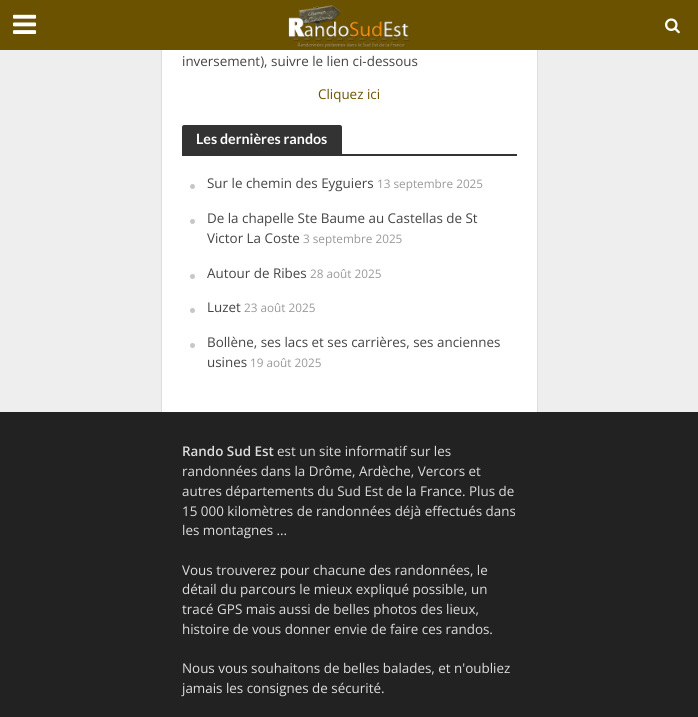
import math
import cairocffi as cairo

surface = cairo.ImageSurface(cairo.FORMAT_RGB24, 698, 717)
ctx = cairo.Context(surface)
options = cairo.FontOptions()
options.set_hint_metrics(cairo.HINT_METRICS_OFF)
options.set_hint_style(cairo.HINT_STYLE_NONE)
ctx.set_font_options(options)
ctx.set_miter_limit(4)


def rgb(r, g, b):
    ctx.set_source_rgb(r / 255, g / 255, b / 255)


def face(family, size, italic, bold):
    ctx.select_font_face(family, cairo.FONT_SLANT_ITALIC if italic else cairo.FONT_SLANT_NORMAL, cairo.FONT_WEIGHT_BOLD if bold else cairo.FONT_WEIGHT_NORMAL)
    ctx.set_font_size(size)


def label(x, y, s):
    ctx.move_to(x, y)
    ctx.show_text(s)


def rect(x, y, w, h):
    ctx.rectangle(x, y, w, h)
    ctx.fill()


def image(path, x, y, w, h):
    ctx.save()
    ctx.set_source_surface(cairo.ImageSurface.create_from_png(path), x, y)
    ctx.rectangle(x, y, w, h)
    ctx.fill()
    ctx.restore()


rgb(238, 238, 238)
ctx.paint()
rgb(34, 34, 34)
rect(0, 412, 698, 305)
ctx.rectangle(161.5, -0.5, 376, 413)
ctx.set_source_rgba(0.267, 0.267, 0.267, 0.1)
ctx.set_line_width(1)
ctx.stroke()
rgb(107, 82, 0)
rect(0, 0, 698, 50)
image('image0.png', 13, 14, 24, 20)
image('image1.png', 288, 5, 122, 43)
image('image2.png', 665, 18, 15, 16)
rgb(255, 255, 255)
rect(162, 50, 375, 362)
face('Open Sans', 13.4, 0, 0)
rgb(68, 68, 68)
label(182, 66, 'inversement), suivre le lien ci-dessous')
rgb(107, 82, 0)
label(318, 99, 'Cliquez ici')
rgb(51, 51, 51)
ctx.new_path()
ctx.move_to(184, 125)
ctx.line_to(340, 125)
ctx.curve_to(341, 125, 342, 126, 342, 127)
ctx.line_to(342, 154)
ctx.line_to(182, 154)
ctx.line_to(182, 127)
ctx.curve_to(182, 126, 183, 125, 184, 125)
ctx.close_path()
ctx.fill()
face('Lato', 14.25, 0, 1)
rgb(255, 255, 255)
label(196, 144, 'Les dernières randos')
rgb(51, 51, 51)
rect(182, 154, 335, 2)
rgb(199, 199, 199)
ctx.new_path()
ctx.arc(192.5, 186.5, 2.5, 0, 2 * math.pi)
ctx.fill()
face('Open Sans', 13.4, 0, 0)
rgb(68, 68, 68)
label(207, 188, 'Sur le chemin des Eyguiers')
face('Open Sans', 11.75, 0, 0)
rgb(153, 153, 153)
label(377, 188, '13 septembre 2025')
rgb(199, 199, 199)
ctx.new_path()
ctx.arc(192.5, 221.5, 2.5, 0, 2 * math.pi)
ctx.fill()
face('Open Sans', 13.4, 0, 0)
rgb(68, 68, 68)
label(207, 223, 'De la chapelle Ste Baume au Castellas de St')
label(207, 243, 'Victor La Coste')
face('Open Sans', 11.75, 0, 0)
rgb(153, 153, 153)
label(303, 243, '3 septembre 2025')
rgb(199, 199, 199)
ctx.new_path()
ctx.arc(192.5, 276.5, 2.5, 0, 2 * math.pi)
ctx.fill()
face('Open Sans', 13.4, 0, 0)
rgb(68, 68, 68)
label(207, 278, 'Autour de Ribes')
face('Open Sans', 11.75, 0, 0)
rgb(153, 153, 153)
label(310, 278, '28 août 2025')
rgb(199, 199, 199)
ctx.new_path()
ctx.arc(192.5, 310.5, 2.5, 0, 2 * math.pi)
ctx.fill()
face('Open Sans', 13.4, 0, 0)
rgb(68, 68, 68)
label(207, 312, 'Luzet')
face('Open Sans', 11.75, 0, 0)
rgb(153, 153, 153)
label(244, 312, '23 août 2025')
rgb(199, 199, 199)
ctx.new_path()
ctx.arc(192.5, 345.5, 2.5, 0, 2 * math.pi)
ctx.fill()
face('Open Sans', 13.4, 0, 0)
rgb(68, 68, 68)
label(207, 347, 'Bollène, ses lacs et ses carrières, ses anciennes')
label(207, 367, 'usines')
face('Open Sans', 11.75, 0, 0)
rgb(153, 153, 153)
label(250, 367, '19 août 2025')
face('Open Sans SemiBold', 13.4, 0, 0)
rgb(221, 221, 221)
label(182, 456, 'Rando Sud Est')
face('Open Sans', 13.4, 0, 0)
label(277, 456, 'est un site informatif sur les')
label(182, 476, 'randonnées dans la Drôme, Ardèche, Vercors et')
label(182, 496, 'autres départements du Sud Est de la France. Plus de')
label(182, 516, '15 000 kilomètres de randonnées déjà effectués dans')
label(182, 535, 'les montagnes ...')
label(182, 575, 'Vous trouverez pour chacune des randonnées, le')
label(182, 594, 'détail du parcours le mieux expliqué possible, un')
label(182, 614, 'tracé GPS mais aussi de belles photos des lieux,')
label(182, 634, 'histoire de vous donner envie de faire ces randos.')
label(182, 673, 'Nous vous souhaitons de belles balades, et n\'oubliez')
label(182, 693, 'jamais les consignes de sécurité.')
surface.write_to_png('render.png')
